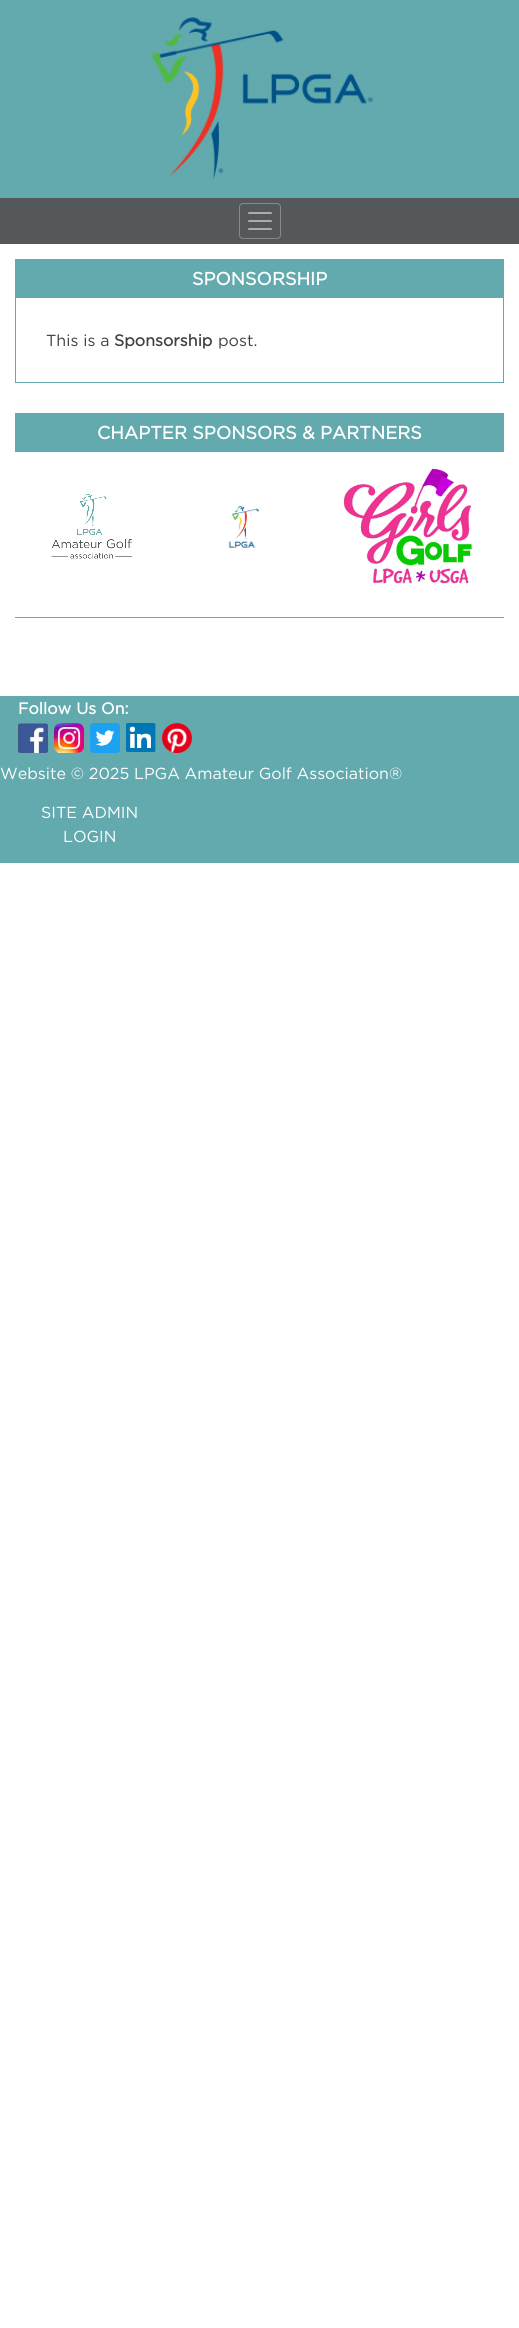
import math
import cairocffi as cairo

surface = cairo.ImageSurface(cairo.FORMAT_RGB24, 519, 2328)
ctx = cairo.Context(surface)
options = cairo.FontOptions()
options.set_hint_metrics(cairo.HINT_METRICS_OFF)
options.set_hint_style(cairo.HINT_STYLE_NONE)
ctx.set_font_options(options)
ctx.set_miter_limit(4)


def rgb(r, g, b):
    ctx.set_source_rgb(r / 255, g / 255, b / 255)


def face(family, size, italic, bold):
    ctx.select_font_face(family, cairo.FONT_SLANT_ITALIC if italic else cairo.FONT_SLANT_NORMAL, cairo.FONT_WEIGHT_BOLD if bold else cairo.FONT_WEIGHT_NORMAL)
    ctx.set_font_size(size)


def label(x, y, s):
    ctx.move_to(x, y)
    ctx.show_text(s)


def rect(x, y, w, h):
    ctx.rectangle(x, y, w, h)
    ctx.fill()


def rrect(x, y, w, h, r):
    ctx.new_sub_path()
    for i, (u, v) in enumerate([(x + w - r, y + h - r), (x + r, y + h - r), (x + r, y + r), (x + w - r, y + r)]):
        ctx.arc(u, v, r, i * math.pi / 2, (i + 1) * math.pi / 2)
    ctx.close_path()


def image(path, x, y, w, h):
    ctx.save()
    ctx.set_source_surface(cairo.ImageSurface.create_from_png(path), x, y)
    ctx.rectangle(x, y, w, h)
    ctx.fill()
    ctx.restore()


rgb(255, 255, 255)
ctx.paint()
rgb(98, 170, 174)
rect(0, 0, 519, 198)
image('image0.png', 151, 17, 222, 162)
rgb(84, 88, 90)
rect(0, 198, 519, 46)
rrect(239.5, 203.5, 41, 35, 3.5)
rgb(135, 138, 140)
ctx.set_line_width(1)
ctx.stroke()
image('image1.png', 248, 212, 24, 18)
rgb(98, 170, 174)
rect(15, 259, 489, 39)
face('Gotham', 18, 0, 1)
rgb(255, 255, 255)
label(192, 285, 'SPONSORSHIP')
rgb(98, 170, 174)
rect(503, 298, 1, 85)
rect(15, 382, 489, 1)
rect(15, 298, 1, 85)
face('Gotham', 16, 0, 0)
rgb(64, 64, 64)
label(46, 346, 'This is a')
face('Gotham', 16, 0, 1)
label(114, 346, 'Sponsorship')
face('Gotham', 16, 0, 0)
label(218, 346, 'post.')
rgb(98, 170, 174)
rect(15, 413, 489, 39)
face('Gotham', 18, 0, 1)
rgb(255, 255, 255)
label(97, 439, 'CHAPTER SPONSORS & PARTNERS')
image('image2.png', 51, 494, 81, 65)
image('image3.png', 228, 506, 32, 42)
image('image4.png', 343, 468, 129, 116)
rgb(98, 170, 174)
rect(15, 617, 489, 1)
rect(0, 696, 519, 167)
face('Gotham', 16, 0, 1)
rgb(255, 255, 255)
label(18, 714, 'Follow Us On:')
image('image5.png', 18, 723, 30, 30)
image('image6.png', 54, 723, 30, 30)
image('image7.png', 90, 723, 30, 30)
image('image8.png', 126, 723, 30, 29)
image('image9.png', 162, 723, 30, 30)
face('Gotham', 16, 0, 0)
label(0, 779, 'Website © 2025 LPGA Amateur Golf Association®')
label(41, 818, 'SITE ADMIN')
label(63, 842, 'LOGIN')
surface.write_to_png('render.png')
